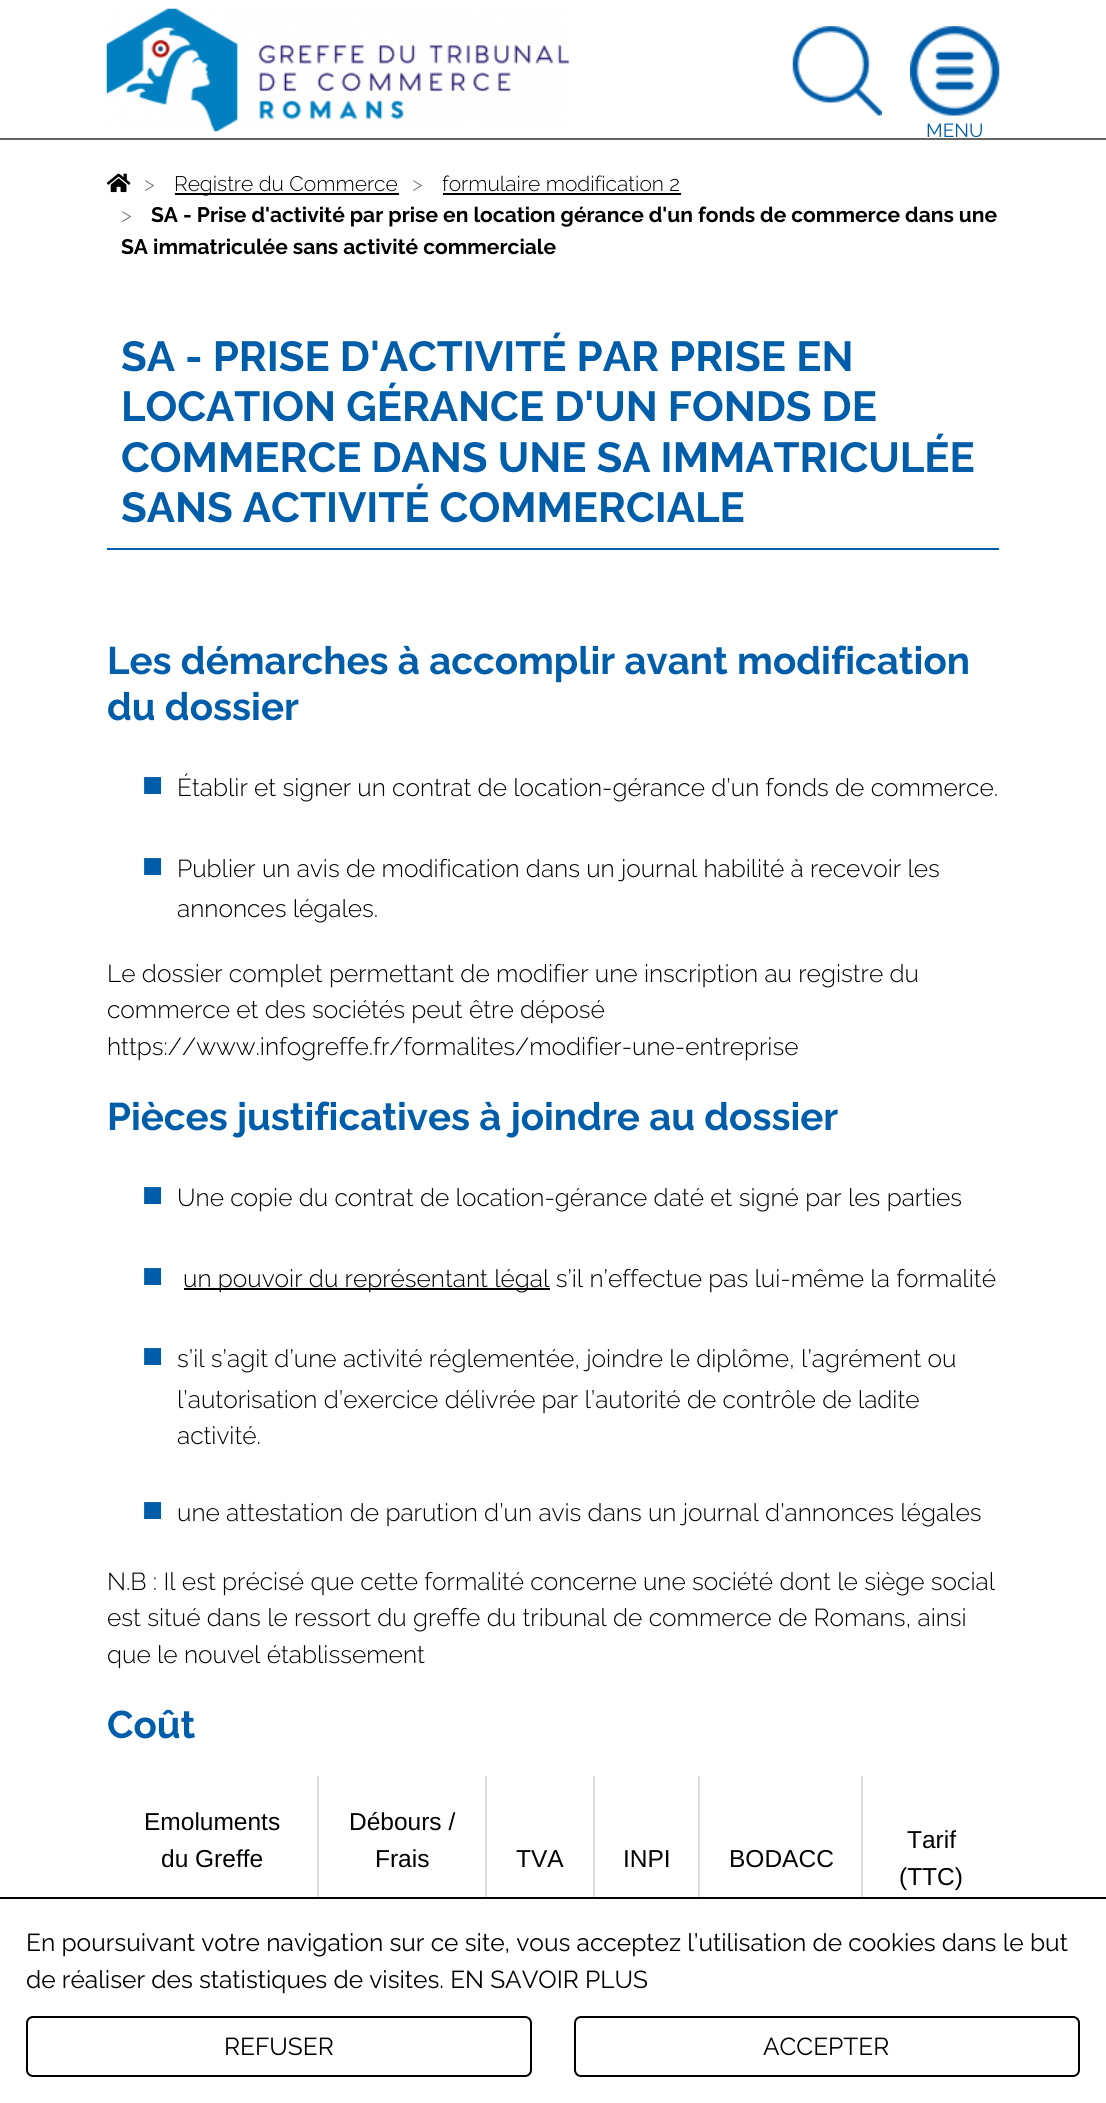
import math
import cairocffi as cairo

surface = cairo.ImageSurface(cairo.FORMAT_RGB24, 1106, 2103)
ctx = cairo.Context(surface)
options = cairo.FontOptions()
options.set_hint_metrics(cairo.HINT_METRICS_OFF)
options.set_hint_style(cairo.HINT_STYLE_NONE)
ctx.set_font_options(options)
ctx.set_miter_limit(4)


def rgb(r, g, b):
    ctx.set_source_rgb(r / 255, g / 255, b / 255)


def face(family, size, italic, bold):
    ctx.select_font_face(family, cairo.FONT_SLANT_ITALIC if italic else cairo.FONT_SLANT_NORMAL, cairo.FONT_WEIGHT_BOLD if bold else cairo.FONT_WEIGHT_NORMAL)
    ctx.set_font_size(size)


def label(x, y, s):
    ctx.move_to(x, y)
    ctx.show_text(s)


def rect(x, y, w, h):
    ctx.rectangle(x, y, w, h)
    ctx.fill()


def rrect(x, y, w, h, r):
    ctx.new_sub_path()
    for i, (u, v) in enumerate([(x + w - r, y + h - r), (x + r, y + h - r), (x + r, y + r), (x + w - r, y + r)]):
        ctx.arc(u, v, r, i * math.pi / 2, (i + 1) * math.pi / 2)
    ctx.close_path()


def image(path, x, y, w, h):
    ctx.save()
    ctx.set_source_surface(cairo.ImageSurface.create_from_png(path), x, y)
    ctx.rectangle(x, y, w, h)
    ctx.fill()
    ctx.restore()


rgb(255, 255, 255)
ctx.paint()
rgb(102, 102, 102)
rect(0, 138, 1106, 2)
image('image0.png', 106, 8, 463, 124)
image('image1.png', 792, 26, 90, 90)
image('image2.png', 910, 26, 90, 90)
face('Raleway', 19, 0, 0)
rgb(0, 93, 170)
label(926, 137, 'MENU')
image('image3.png', 106, 173, 25, 20)
face('Raleway Light', 21, 0, 0)
rgb(108, 117, 125)
label(144, 191, '>')
rgb(0, 0, 0)
rect(175, 193, 224, 2)
label(174, 191, 'Registre du Commerce')
rgb(108, 117, 125)
label(412, 191, '>')
rgb(0, 0, 0)
label(442, 191, 'formulaire modification 2')
rect(443, 193, 238, 2)
rgb(108, 117, 125)
label(121, 222, '>')
face('Raleway', 21, 0, 1)
rgb(0, 0, 0)
label(151, 222, 'SA - Prise d\'activité par prise en location gérance d\'un fonds de commerce dans une')
label(121, 254, 'SA immatriculée sans activité commerciale')
rgb(0, 93, 170)
rect(107, 548, 892, 2)
face('Raleway', 42, 0, 1)
label(121, 371, 'SA - PRISE D\'ACTIVITÉ PAR PRISE EN')
label(121, 421, 'LOCATION GÉRANCE D\'UN FONDS DE')
label(121, 472, 'COMMERCE DANS UNE SA IMMATRICULÉE')
label(121, 522, 'SANS ACTIVITÉ COMMERCIALE')
face('Raleway', 38.5, 0, 1)
label(107, 674, 'Les démarches à accomplir avant modification')
label(107, 720, 'du dossier')
face('Liberation Sans', 35, 0, 0)
label(142, 796, '■')
face('Raleway Light', 24.5, 0, 0)
rgb(0, 0, 0)
label(177, 796, 'Établir et signer un contrat de location-gérance d’un fonds de commerce.')
face('Liberation Sans', 35, 0, 0)
rgb(0, 93, 170)
label(142, 877, '■')
face('Raleway Light', 24.5, 0, 0)
rgb(0, 0, 0)
label(177, 877, 'Publier un avis de modification dans un journal habilité à recevoir les')
label(177, 917, 'annonces légales.')
label(107, 982, 'Le dossier complet permettant de modifier une inscription au registre du')
label(107, 1018, 'commerce et des sociétés peut être déposé')
label(107, 1055, 'https://www.infogreffe.fr/formalites/modifier-une-entreprise')
face('Raleway', 38.5, 0, 1)
rgb(0, 93, 170)
label(107, 1130, 'Pièces justificatives à joindre au dossier')
face('Liberation Sans', 35, 0, 0)
label(142, 1206, '■')
face('Raleway Light', 24.5, 0, 0)
rgb(0, 0, 0)
label(177, 1206, 'Une copie du contrat de location-gérance daté et signé par les parties')
face('Liberation Sans', 35, 0, 0)
rgb(0, 93, 170)
label(142, 1287, '■')
rgb(0, 0, 0)
rect(184, 1288, 366, 2)
face('Raleway Light', 24.5, 0, 0)
label(183, 1287, 'un pouvoir du représentant légal s’il n’effectue pas lui-même la formalité')
face('Liberation Sans', 35, 0, 0)
rgb(0, 93, 170)
label(142, 1367, '■')
face('Raleway Light', 24.5, 0, 0)
rgb(0, 0, 0)
label(177, 1367, 's’il s’agit d’une activité réglementée, joindre le diplôme, l’agrément ou')
label(177, 1408, 'l’autorisation d’exercice délivrée par l’autorité de contrôle de ladite')
label(177, 1444, 'activité.')
face('Liberation Sans', 35, 0, 0)
rgb(0, 93, 170)
label(142, 1521, '■')
face('Raleway Light', 24.5, 0, 0)
rgb(0, 0, 0)
label(177, 1521, 'une attestation de parution d’un avis dans un journal d’annonces légales')
label(107, 1590, 'N.B : Il est précisé que cette formalité concerne une société dont le siège social')
label(107, 1626, 'est situé dans le ressort du greffe du tribunal de commerce de Romans, ainsi')
label(107, 1663, 'que le nouvel établissement')
face('Raleway', 38.5, 0, 1)
rgb(0, 93, 170)
label(107, 1738, 'Coût')
rgb(221, 221, 221)
rect(317, 1776, 2, 121)
face('Liberation Sans', 24.5, 0, 0)
rgb(0, 0, 0)
label(144, 1830, 'Emoluments')
label(161, 1867, 'du Greffe')
rgb(221, 221, 221)
rect(485, 1776, 2, 121)
rgb(0, 0, 0)
label(349, 1830, 'Débours /')
label(375, 1867, 'Frais')
rgb(221, 221, 221)
rect(593, 1776, 2, 121)
rgb(0, 0, 0)
label(516, 1867, 'TVA')
rgb(221, 221, 221)
rect(698, 1776, 2, 121)
rgb(0, 0, 0)
label(623, 1867, 'INPI')
rgb(221, 221, 221)
rect(861, 1776, 2, 121)
rgb(0, 0, 0)
label(729, 1867, 'BODACC')
label(907, 1848, 'Tarif')
label(899, 1885, '(TTC)')
rect(0, 1897, 1106, 2)
face('Raleway', 24.5, 0, 0)
label(26, 1951, 'En poursuivant votre navigation sur ce site, vous acceptez l’utilisation de cookies dans le but')
label(26, 1988, 'de réaliser des statistiques de visites. EN SAVOIR PLUS')
rrect(27, 2017, 504, 59, 6)
ctx.stroke()
label(224, 2055, 'REFUSER')
rrect(575, 2017, 504, 59, 6)
ctx.stroke()
label(763, 2055, 'ACCEPTER')
surface.write_to_png('render.png')
